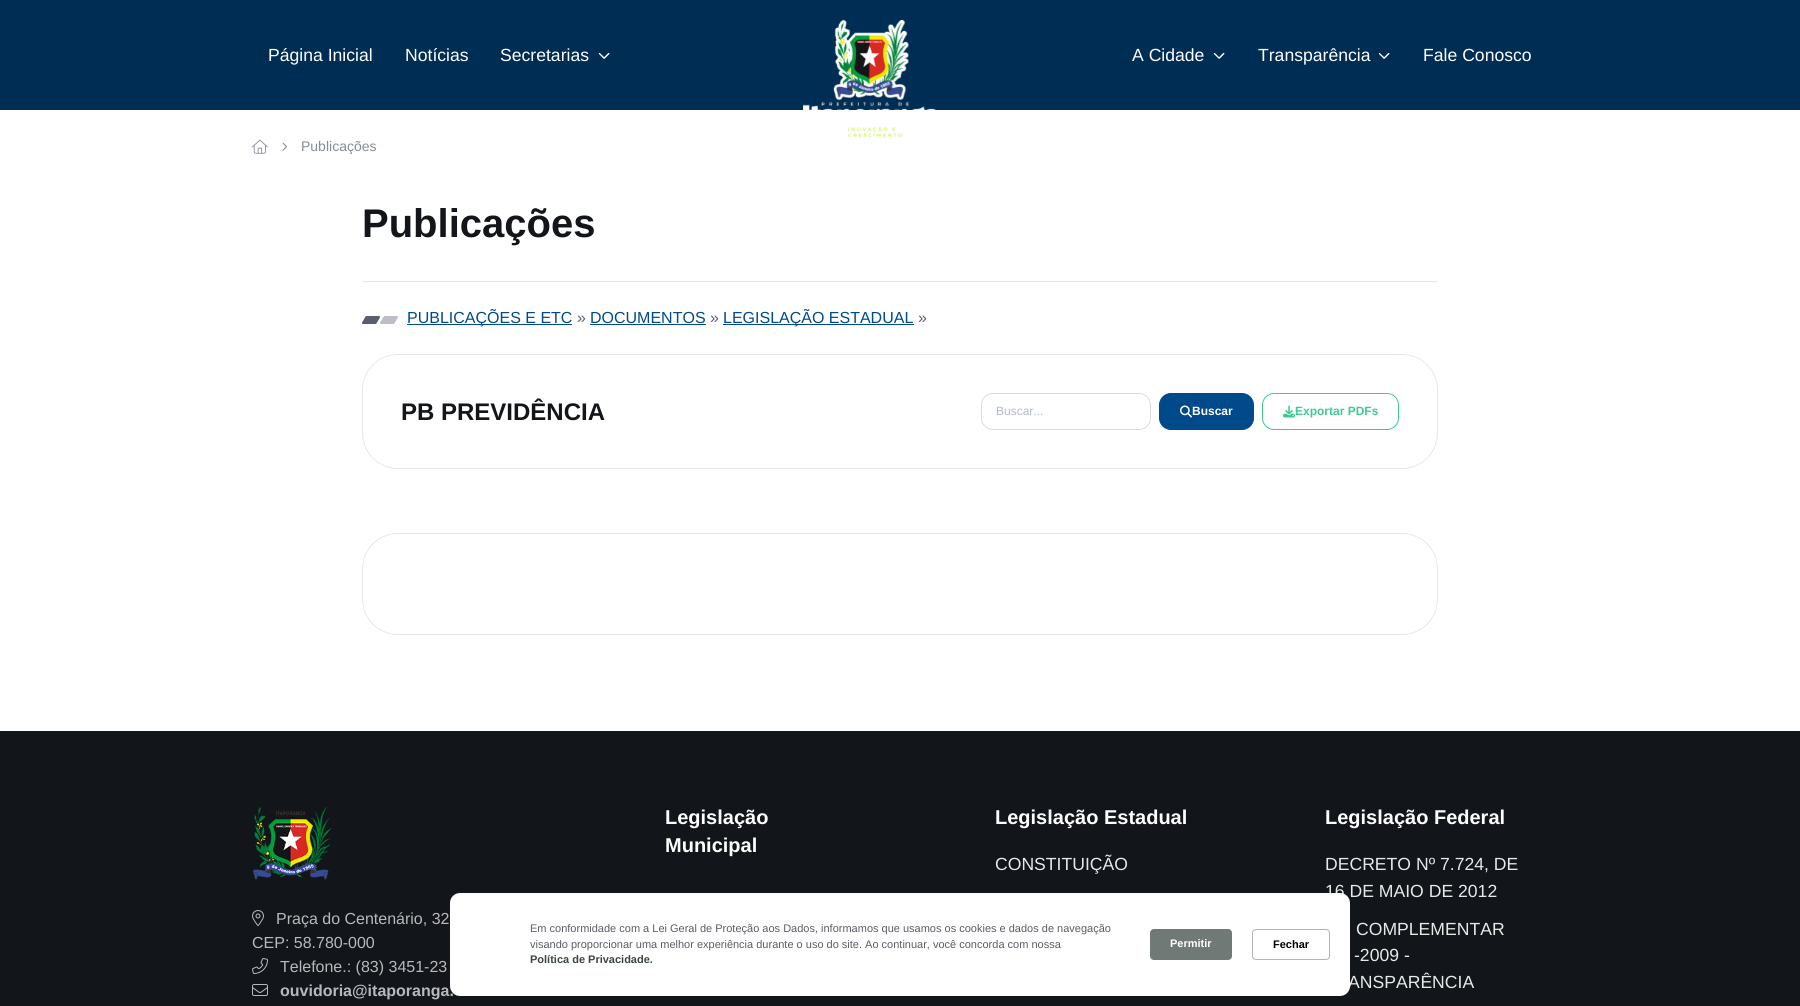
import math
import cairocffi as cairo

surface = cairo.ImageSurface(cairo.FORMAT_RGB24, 1800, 1006)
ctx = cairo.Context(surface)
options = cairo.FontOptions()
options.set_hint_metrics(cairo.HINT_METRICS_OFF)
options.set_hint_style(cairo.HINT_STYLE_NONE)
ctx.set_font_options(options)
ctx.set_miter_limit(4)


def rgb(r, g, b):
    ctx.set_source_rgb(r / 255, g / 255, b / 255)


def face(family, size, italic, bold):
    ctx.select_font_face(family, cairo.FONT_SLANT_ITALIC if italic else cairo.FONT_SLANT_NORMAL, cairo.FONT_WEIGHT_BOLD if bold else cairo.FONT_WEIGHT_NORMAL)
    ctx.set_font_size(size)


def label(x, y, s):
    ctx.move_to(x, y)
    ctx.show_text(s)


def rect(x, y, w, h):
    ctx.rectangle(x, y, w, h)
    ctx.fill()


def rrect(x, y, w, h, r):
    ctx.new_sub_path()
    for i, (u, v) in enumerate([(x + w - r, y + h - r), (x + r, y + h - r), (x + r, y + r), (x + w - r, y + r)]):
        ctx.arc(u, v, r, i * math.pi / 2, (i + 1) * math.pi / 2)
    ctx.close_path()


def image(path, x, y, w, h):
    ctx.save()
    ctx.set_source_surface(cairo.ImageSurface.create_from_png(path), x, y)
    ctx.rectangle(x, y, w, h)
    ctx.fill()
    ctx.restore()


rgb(255, 255, 255)
ctx.paint()
rgb(0, 45, 84)
rect(0, 0, 1800, 110)
face('Liberation Sans', 17.6, 0, 0)
rgb(255, 255, 255)
label(268, 61, 'Página Inicial')
label(405, 61, 'Notícias')
label(500, 61, 'Secretarias')
image('image0.png', 598, 52, 12, 7)
image('image1.png', 803, 20, 134, 118)
label(1132, 61, 'A Cidade')
image('image0.png', 1213, 52, 12, 7)
label(1258, 61, 'Transparência')
image('image0.png', 1378, 52, 12, 7)
label(1423, 61, 'Fale Conosco')
image('image2.png', 252, 139, 16, 15)
image('image3.png', 282, 142, 5, 9)
face('Liberation Sans', 14, 0, 0)
rgb(133, 140, 151)
label(301, 151, 'Publicações')
rgb(227, 233, 239)
rect(362, 281, 1076, 1)
face('Liberation Sans', 40, 0, 1)
rgb(18, 21, 25)
label(362, 237, 'Publicações')
image('image4.png', 362, 316, 18, 8)
image('image5.png', 362, 316, 36, 8)
rgb(0, 74, 139)
rect(407, 324, 165, 1)
face('Liberation Sans', 16, 0, 0)
label(407, 323, 'PUBLICAÇÕES E ETC')
rgb(87, 96, 113)
label(577, 323, '»')
rgb(0, 74, 139)
label(590, 323, 'DOCUMENTOS')
rect(590, 324, 116, 1)
rgb(87, 96, 113)
label(710, 323, '»')
rgb(0, 74, 139)
rect(723, 324, 191, 1)
label(723, 323, 'LEGISLAÇÃO ESTADUAL')
rgb(87, 96, 113)
label(918, 323, '»')
rrect(362.5, 354.5, 1075, 114, 35.5)
rgb(227, 233, 239)
ctx.set_line_width(1)
ctx.stroke()
face('Liberation Sans', 24, 0, 1)
rgb(18, 21, 25)
label(401, 420, 'PB PREVIDÊNCIA')
rrect(981.5, 393.5, 169, 36, 11.5)
rgb(215, 221, 226)
ctx.stroke()
face('Liberation Sans', 12, 0, 0)
rgb(180, 187, 195)
label(996, 415, 'Buscar...')
rgb(0, 74, 139)
rrect(1159.5, 393.5, 94, 36, 11.5)
ctx.fill_preserve()
ctx.stroke()
image('image6.png', 1180, 405, 12, 13)
face('Liberation Sans', 12, 0, 1)
rgb(255, 255, 255)
label(1192, 415, 'Buscar')
rrect(1262.5, 393.5, 136, 36, 11.5)
rgb(63, 202, 144)
ctx.stroke()
image('image7.png', 1283, 405, 12, 13)
label(1295, 415, 'Exportar PDFs')
rrect(362.5, 533.5, 1075, 101, 35.5)
rgb(227, 233, 239)
ctx.stroke()
rgb(18, 21, 25)
rect(0, 731, 1800, 275)
image('image8.png', 252, 807, 80, 73)
image('image9.png', 252, 910, 12, 16)
face('Liberation Sans', 16, 0, 0)
rgb(184, 185, 186)
label(276, 924, 'Praça do Centenário, 32')
label(252, 948, 'CEP: 58.780-000')
image('image10.png', 252, 958, 16, 16)
label(280, 972, 'Telefone.: (83) 3451-23')
image('image11.png', 252, 984, 16, 12)
face('Liberation Sans', 16, 0, 1)
label(280, 996, 'ouvidoria@itaporanga.')
face('Liberation Sans', 20, 0, 1)
rgb(255, 255, 255)
label(665, 824, 'Legislação')
label(665, 852, 'Municipal')
label(995, 824, 'Legislação Estadual')
face('Liberation Sans', 17.6, 0, 0)
rgb(231, 232, 232)
label(995, 870, 'CONSTITUIÇÃO')
face('Liberation Sans', 20, 0, 1)
rgb(255, 255, 255)
label(1325, 824, 'Legislação Federal')
face('Liberation Sans', 17.6, 0, 0)
rgb(231, 232, 232)
label(1325, 870, 'DECRETO Nº 7.724, DE')
label(1325, 897, '16 DE MAIO DE 2012')
label(1356, 935, 'COMPLEMENTAR')
label(1354, 961, '-2009 -')
label(1348, 988, 'ANSPARÊNCIA')
rgb(255, 255, 255)
rrect(450, 893, 900, 103, 10)
ctx.fill()
face('Liberation Sans', 11, 0, 0)
rgb(91, 92, 101)
label(530, 932, 'Em conformidade com a Lei Geral de Proteção aos Dados, informamos que usamos os cookies e dados de navegação')
label(530, 948, 'visando proporcionar uma melhor experiência durante o uso do site. Ao continuar, você concorda com nossa')
face('Liberation Sans', 11, 0, 1)
rgb(59, 70, 66)
label(530, 963, 'Política de Privacidade.')
rgb(112, 121, 117)
rrect(1150, 929, 82, 31, 4)
ctx.fill()
rgb(255, 255, 255)
label(1170, 947, 'Permitir')
rrect(1252.5, 929.5, 77, 30, 3.5)
rgb(179, 179, 179)
ctx.stroke()
rgb(0, 0, 0)
label(1273, 948, 'Fechar')
surface.write_to_png('render.png')
